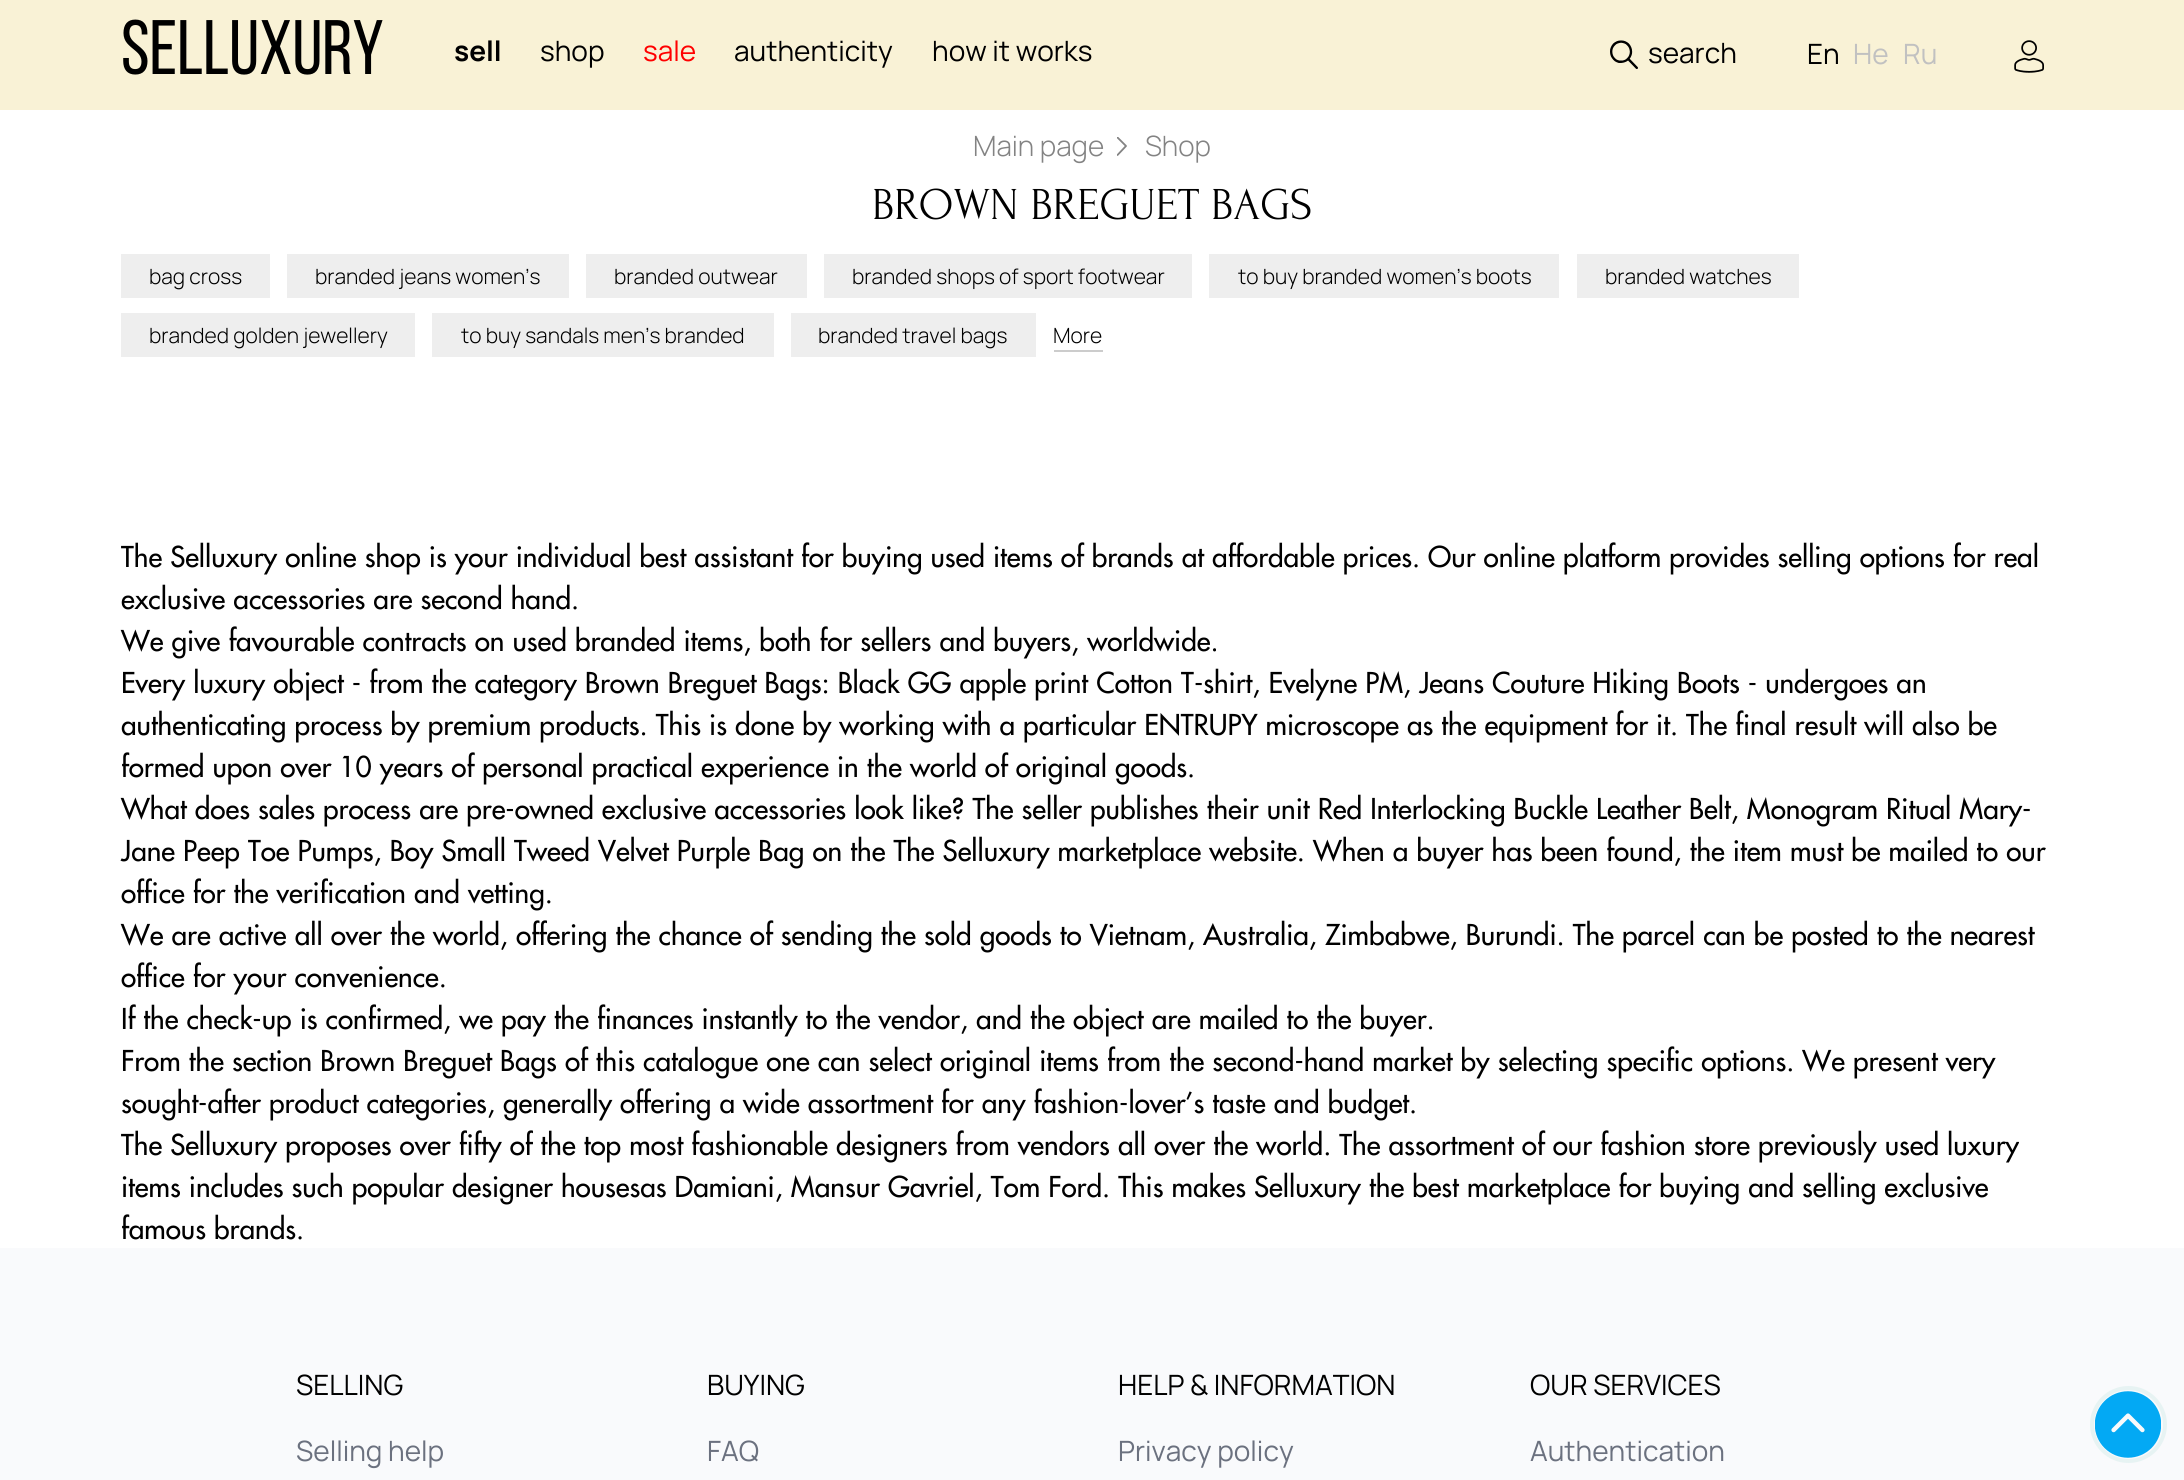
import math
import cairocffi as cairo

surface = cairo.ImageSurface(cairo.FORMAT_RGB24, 2184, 1480)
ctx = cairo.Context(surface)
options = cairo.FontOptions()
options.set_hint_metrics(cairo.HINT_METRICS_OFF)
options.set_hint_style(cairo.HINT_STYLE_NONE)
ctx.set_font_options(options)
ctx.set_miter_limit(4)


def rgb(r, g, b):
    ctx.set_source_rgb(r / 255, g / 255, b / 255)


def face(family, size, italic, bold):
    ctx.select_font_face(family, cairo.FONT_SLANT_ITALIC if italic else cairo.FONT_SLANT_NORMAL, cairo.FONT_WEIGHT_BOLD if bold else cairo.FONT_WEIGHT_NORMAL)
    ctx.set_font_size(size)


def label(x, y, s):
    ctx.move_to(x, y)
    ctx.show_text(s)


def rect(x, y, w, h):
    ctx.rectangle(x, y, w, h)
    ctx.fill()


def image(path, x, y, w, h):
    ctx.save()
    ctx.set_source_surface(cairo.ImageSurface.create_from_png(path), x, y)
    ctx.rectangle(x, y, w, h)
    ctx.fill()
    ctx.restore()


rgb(255, 255, 255)
ctx.paint()
rgb(249, 242, 214)
rect(0, 0, 2184, 110)
face('Bebas Neue', 77, 0, 0)
rgb(0, 0, 0)
label(121, 74, 'Selluxury')
face('Manrope', 28, 0, 1)
label(454, 61, 'sell')
face('Manrope', 28, 0, 0)
label(540, 61, 'shop')
rgb(255, 0, 0)
label(643, 61, 'sale')
rgb(0, 0, 0)
label(734, 61, 'authenticity')
label(932, 61, 'how it works')
image('image0.png', 1610, 40, 28, 29)
label(1648, 63, 'search')
label(1807, 64, 'En')
rgb(193, 193, 193)
label(1853, 64, 'He')
label(1903, 64, 'Ru')
image('image1.png', 2014, 40, 30, 33)
face('Manrope Light', 28, 0, 0)
rgb(131, 131, 131)
label(973, 156, 'Main page')
ctx.save()
ctx.rectangle(1117, 137, 10, 19)
ctx.clip()
ctx.new_path()
ctx.move_to(1117.5, 137.5)
ctx.line_to(1126, 146)
ctx.line_to(1117.5, 155)
ctx.set_line_width(1.8)
ctx.set_line_cap(cairo.LINE_CAP_ROUND)
ctx.set_line_join(cairo.LINE_JOIN_ROUND)
ctx.stroke()
ctx.restore()
label(1145, 156, 'Shop')
face('Forum', 45.5, 0, 0)
rgb(0, 0, 0)
label(872, 219, 'BROWN BREGUET BAGS')
rgb(238, 238, 238)
rect(121, 254, 149, 44)
face('Manrope Light', 21, 0, 0)
rgb(0, 0, 0)
label(149, 284, 'bag cross')
rgb(238, 238, 238)
rect(287, 254, 282, 44)
rgb(0, 0, 0)
label(315, 284, 'branded jeans women’s')
rgb(238, 238, 238)
rect(586, 254, 221, 44)
rgb(0, 0, 0)
label(614, 284, 'branded outwear')
rgb(238, 238, 238)
rect(824, 254, 368, 44)
rgb(0, 0, 0)
label(852, 284, 'branded shops of sport footwear')
rgb(238, 238, 238)
rect(1209, 254, 350, 44)
rgb(0, 0, 0)
label(1238, 284, 'to buy branded women’s boots')
rgb(238, 238, 238)
rect(1577, 254, 222, 44)
rgb(0, 0, 0)
label(1605, 284, 'branded watches')
rgb(238, 238, 238)
rect(121, 313, 294, 44)
rgb(0, 0, 0)
label(149, 343, 'branded golden jewellery')
rgb(238, 238, 238)
rect(432, 313, 342, 44)
rgb(0, 0, 0)
label(461, 343, 'to buy sandals men’s branded')
rgb(238, 238, 238)
rect(791, 313, 245, 44)
rgb(0, 0, 0)
label(818, 343, 'branded travel bags')
label(1053, 343, 'More')
rgb(204, 204, 204)
rect(1054, 350, 49, 2)
face('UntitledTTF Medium', 28, 0, 0)
rgb(0, 0, 0)
label(121, 567, 'The Selluxury online shop is your individual best assistant for buying used items of brands at affordable prices. Our online platform provides selling options for real')
label(121, 609, 'exclusive accessories are second hand.')
label(121, 651, 'We give favourable contracts on used branded items, both for sellers and buyers, worldwide.')
label(121, 693, 'Every luxury object - from the category Brown Breguet Bags: Black GG apple print Cotton T-shirt, Evelyne PM, Jeans Couture Hiking Boots - undergoes an')
label(121, 735, 'authenticating process by premium products. This is done by working with a particular ENTRUPY microscope as the equipment for it. The final result will also be')
label(121, 777, 'formed upon over 10 years of personal practical experience in the world of original goods.')
label(121, 819, 'What does sales process are pre-owned exclusive accessories look like? The seller publishes their unit Red Interlocking Buckle Leather Belt, Monogram Ritual Mary-')
label(121, 861, 'Jane Peep Toe Pumps, Boy Small Tweed Velvet Purple Bag on the The Selluxury marketplace website. When a buyer has been found, the item must be mailed to our')
label(121, 903, 'office for the verification and vetting.')
label(121, 945, 'We are active all over the world, offering the chance of sending the sold goods to Vietnam, Australia, Zimbabwe, Burundi. The parcel can be posted to the nearest')
label(121, 987, 'office for your convenience.')
label(121, 1029, 'If the check-up is confirmed, we pay the finances instantly to the vendor, and the object are mailed to the buyer.')
label(121, 1071, 'From the section Brown Breguet Bags of this catalogue one can select original items from the second-hand market by selecting specific options. We present very')
label(121, 1113, 'sought-after product categories, generally offering a wide assortment for any fashion-lover’s taste and budget.')
label(121, 1155, 'The Selluxury proposes over fifty of the top most fashionable designers from vendors all over the world. The assortment of our fashion store previously used luxury')
label(121, 1197, 'items includes such popular designer housesas Damiani, Mansur Gavriel, Tom Ford. This makes Selluxury the best marketplace for buying and selling exclusive')
label(121, 1239, 'famous brands.')
rgb(249, 250, 252)
rect(0, 1248, 2184, 232)
face('Manrope', 28, 0, 0)
rgb(0, 0, 0)
label(296, 1395, 'SELLING')
rgb(107, 113, 127)
label(296, 1461, 'Selling help')
rgb(0, 0, 0)
label(707, 1395, 'BUYING')
rgb(107, 113, 127)
label(707, 1461, 'FAQ')
rgb(0, 0, 0)
label(1118, 1395, 'HELP & INFORMATION')
rgb(107, 113, 127)
label(1118, 1461, 'Privacy policy')
rgb(0, 0, 0)
label(1530, 1395, 'OUR SERVICES')
rgb(107, 113, 127)
label(1530, 1461, 'Authentication')
image('image2.png', 2095, 1391, 66, 67)
ctx.arc(2128.5, 1424.5, 36.5, 0, 2 * math.pi)
rgb(231, 243, 243)
ctx.set_line_width(4)
ctx.stroke()
surface.write_to_png('render.png')
